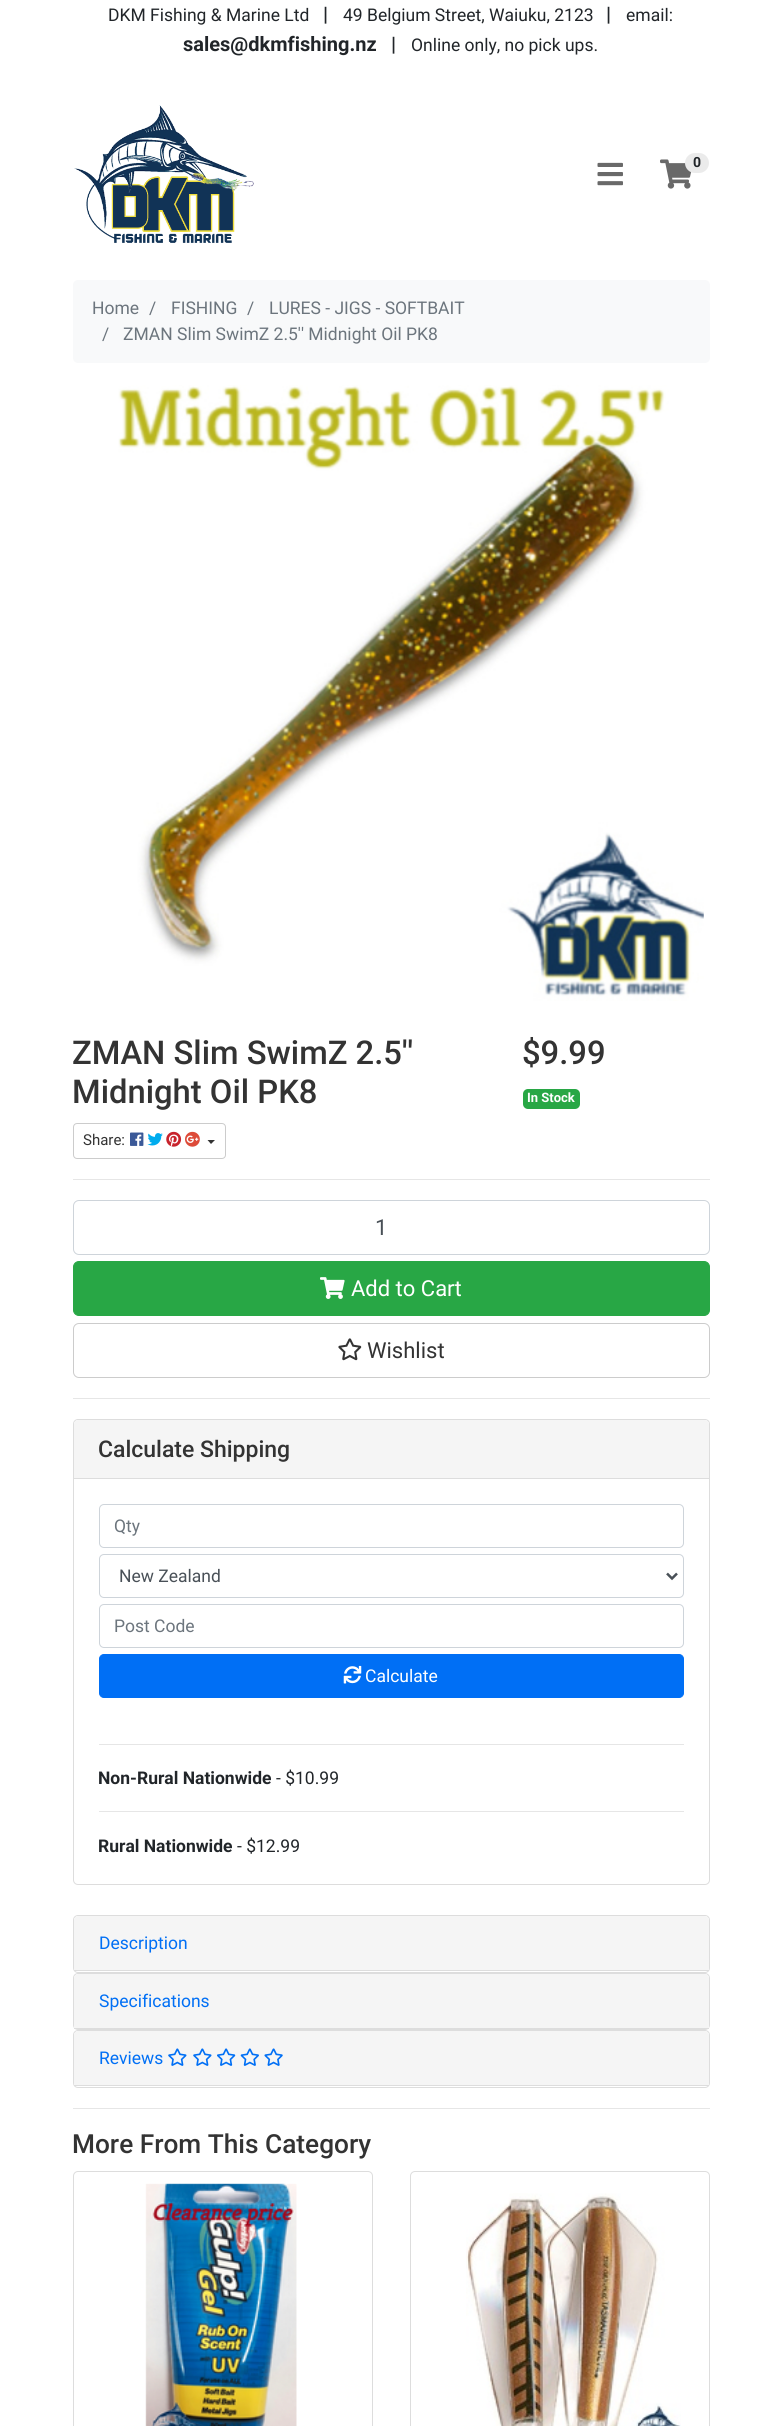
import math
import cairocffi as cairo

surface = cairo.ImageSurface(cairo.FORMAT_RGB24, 781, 2426)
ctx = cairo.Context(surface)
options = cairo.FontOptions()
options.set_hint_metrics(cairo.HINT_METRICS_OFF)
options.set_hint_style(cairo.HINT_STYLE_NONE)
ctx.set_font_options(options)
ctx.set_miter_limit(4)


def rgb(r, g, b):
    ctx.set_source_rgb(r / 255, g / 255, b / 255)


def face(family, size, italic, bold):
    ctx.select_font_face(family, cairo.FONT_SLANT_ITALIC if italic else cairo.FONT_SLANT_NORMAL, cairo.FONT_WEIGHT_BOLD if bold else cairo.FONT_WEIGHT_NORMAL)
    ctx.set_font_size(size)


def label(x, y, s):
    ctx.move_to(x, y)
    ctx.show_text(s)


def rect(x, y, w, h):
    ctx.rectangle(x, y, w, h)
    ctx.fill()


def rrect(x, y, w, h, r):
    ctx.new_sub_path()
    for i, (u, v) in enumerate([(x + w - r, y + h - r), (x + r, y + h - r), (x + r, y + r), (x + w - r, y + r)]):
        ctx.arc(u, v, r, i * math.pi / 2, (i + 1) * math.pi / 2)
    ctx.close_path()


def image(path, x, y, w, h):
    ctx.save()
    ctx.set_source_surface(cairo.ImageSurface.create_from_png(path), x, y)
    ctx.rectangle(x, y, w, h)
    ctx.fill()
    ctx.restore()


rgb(255, 255, 255)
ctx.paint()
face('Roboto', 17.5, 0, 0)
rgb(33, 37, 41)
label(108, 21, 'DKM Fishing & Marine Ltd')
face('Roboto', 20, 0, 1)
label(323, 21, '|')
face('Roboto', 17.5, 0, 0)
label(343, 21, '49 Belgium Street, Waiuku, 2123')
face('Roboto', 20, 0, 1)
label(606, 21, '|')
face('Roboto', 17.5, 0, 0)
label(626, 21, 'email:')
face('Roboto', 20, 0, 1)
label(183, 51, 'sales@dkmfishing.nz')
label(391, 51, '|')
face('Roboto', 17.5, 0, 0)
label(411, 51, 'Online only, no pick ups.')
image('image0.png', 74, 105, 180, 138)
image('image1.png', 597, 162, 26, 24)
image('image2.png', 660, 159, 32, 30)
rgb(235, 235, 235)
rrect(685, 153, 24, 20, 10)
ctx.fill()
face('Roboto', 14, 0, 1)
rgb(33, 37, 41)
label(693, 167, '0')
rgb(248, 249, 250)
rrect(73, 280, 637, 83, 5)
ctx.fill()
face('Roboto', 17.5, 0, 0)
rgb(108, 117, 125)
label(92, 314, 'Home')
label(149, 314, '/')
label(171, 314, 'FISHING')
label(247, 314, '/')
label(269, 314, 'LURES - JIGS - SOFTBAIT')
label(102, 340, '/')
label(123, 340, 'ZMAN Slim SwimZ 2.5\'\' Midnight Oil PK8')
image('image3.png', 118, 385, 586, 616)
face('Roboto Medium', 32.75, 0, 0)
rgb(51, 51, 51)
label(72, 1064, 'ZMAN Slim SwimZ 2.5\'\'')
label(72, 1103, 'Midnight Oil PK8')
rrect(73.5, 1123.5, 152, 35, 3.5)
rgb(204, 204, 204)
ctx.set_line_width(1)
ctx.stroke()
face('Roboto', 15, 0, 0)
rgb(51, 51, 51)
label(83, 1145, 'Share:')
image('image4.png', 130, 1132, 14, 14)
image('image5.png', 147, 1133, 16, 13)
image('image6.png', 166, 1131, 16, 16)
image('image7.png', 185, 1131, 15, 16)
ctx.new_path()
ctx.move_to(207.5, 1140)
ctx.line_to(215, 1140)
ctx.line_to(211, 1144)
ctx.close_path()
ctx.fill()
face('Roboto Medium', 32.75, 0, 0)
label(522, 1064, '$9.99')
rgb(40, 167, 69)
rrect(523, 1089, 57, 20, 5)
ctx.fill()
face('Roboto', 13, 0, 1)
rgb(255, 255, 255)
label(527, 1102, 'In Stock')
rgb(230, 230, 230)
rect(73, 1179, 637, 1)
rrect(73.5, 1200.5, 636, 54, 5.5)
rgb(206, 212, 218)
ctx.stroke()
face('Roboto', 22, 0, 0)
rgb(73, 80, 87)
label(375, 1235, '1')
rgb(40, 167, 69)
rrect(73.5, 1261.5, 636, 54, 5.5)
ctx.fill_preserve()
ctx.stroke()
image('image8.png', 320, 1277, 25, 22)
rgb(255, 255, 255)
label(351, 1296, 'Add to Cart')
rrect(73.5, 1323.5, 636, 54, 5.5)
rgb(204, 204, 204)
ctx.stroke()
image('image9.png', 338, 1338, 24, 23)
rgb(51, 51, 51)
label(367, 1358, 'Wishlist')
rgb(230, 230, 230)
rect(73, 1398, 637, 1)
rrect(73.5, 1419.5, 636, 465, 4.5)
rgb(221, 221, 221)
ctx.stroke()
rgb(245, 245, 245)
ctx.new_path()
ctx.move_to(78, 1420)
ctx.line_to(705, 1420)
ctx.curve_to(707, 1420, 709, 1422, 709, 1424)
ctx.line_to(709, 1479)
ctx.line_to(74, 1479)
ctx.line_to(74, 1424)
ctx.curve_to(74, 1422, 76, 1420, 78, 1420)
ctx.close_path()
ctx.fill()
rgb(221, 221, 221)
rect(74, 1478, 635, 1)
face('Roboto Medium', 23, 0, 0)
rgb(51, 51, 51)
label(98, 1457, 'Calculate Shipping')
rrect(99.5, 1504.5, 584, 43, 4.5)
rgb(206, 212, 218)
ctx.stroke()
face('Roboto', 17.5, 0, 0)
rgb(108, 117, 125)
label(114, 1532, 'Qty')
rrect(99.5, 1554.5, 584, 43, 4.5)
rgb(206, 212, 218)
ctx.stroke()
ctx.new_path()
ctx.move_to(667, 1573.5)
ctx.line_to(672, 1578.5)
ctx.line_to(677, 1573.5)
rgb(73, 80, 87)
ctx.set_line_width(2.5)
ctx.stroke()
label(119, 1582, 'New Zealand')
rrect(99.5, 1604.5, 584, 43, 4.5)
rgb(206, 212, 218)
ctx.set_line_width(1)
ctx.stroke()
rgb(108, 117, 125)
label(114, 1632, 'Post Code')
rgb(0, 111, 245)
rrect(99.5, 1654.5, 584, 43, 4.5)
ctx.fill_preserve()
ctx.stroke()
image('image10.png', 343, 1665, 19, 19)
rgb(255, 255, 255)
label(365, 1682, 'Calculate')
rgb(230, 230, 230)
rect(99, 1744, 585, 1)
face('Roboto', 17.5, 0, 1)
rgb(33, 37, 41)
label(98, 1784, 'Non-Rural Nationwide')
face('Roboto', 17.5, 0, 0)
label(276, 1784, '- $10.99')
rgb(230, 230, 230)
rect(99, 1811, 585, 1)
face('Roboto', 17.5, 0, 1)
rgb(33, 37, 41)
label(98, 1852, 'Rural Nationwide')
face('Roboto', 17.5, 0, 0)
label(237, 1852, '- $12.99')
rrect(73.5, 1915.5, 636, 57, 4.5)
rgb(221, 221, 221)
ctx.stroke()
rgb(245, 245, 245)
ctx.new_path()
ctx.move_to(78, 1916)
ctx.line_to(705, 1916)
ctx.curve_to(707, 1916, 709, 1918, 709, 1920)
ctx.line_to(709, 1971)
ctx.line_to(74, 1971)
ctx.line_to(74, 1920)
ctx.curve_to(74, 1918, 76, 1916, 78, 1916)
ctx.close_path()
ctx.fill()
rgb(221, 221, 221)
rect(74, 1970, 635, 1)
rgb(0, 111, 245)
label(99, 1949, 'Description')
rrect(73.5, 1973.5, 636, 56, 4.5)
rgb(221, 221, 221)
ctx.stroke()
rgb(245, 245, 245)
ctx.new_path()
ctx.move_to(78, 1974)
ctx.line_to(705, 1974)
ctx.curve_to(707, 1974, 709, 1976, 709, 1978)
ctx.line_to(709, 2029)
ctx.line_to(74, 2029)
ctx.line_to(74, 1978)
ctx.curve_to(74, 1976, 76, 1974, 78, 1974)
ctx.close_path()
ctx.fill()
rgb(221, 221, 221)
rect(74, 2028, 635, 1)
rgb(0, 111, 245)
label(99, 2007, 'Specifications')
rrect(73.5, 2030.5, 636, 57, 4.5)
rgb(221, 221, 221)
ctx.stroke()
rgb(245, 245, 245)
ctx.new_path()
ctx.move_to(78, 2031)
ctx.line_to(705, 2031)
ctx.curve_to(707, 2031, 709, 2033, 709, 2035)
ctx.line_to(709, 2086)
ctx.line_to(74, 2086)
ctx.line_to(74, 2035)
ctx.curve_to(74, 2033, 76, 2031, 78, 2031)
ctx.close_path()
ctx.fill()
rgb(221, 221, 221)
rect(74, 2085, 635, 1)
rgb(0, 111, 245)
label(99, 2064, 'Reviews')
image('image11.png', 168, 2048, 19, 18)
image('image11.png', 193, 2048, 19, 18)
image('image12.png', 217, 2048, 19, 18)
image('image13.png', 240, 2048, 19, 18)
image('image14.png', 264, 2048, 19, 18)
rgb(230, 230, 230)
rect(73, 2108, 637, 1)
face('Roboto Medium', 26.25, 0, 0)
rgb(51, 51, 51)
label(72, 2153, 'More From This Category')
rrect(73.5, 2171.5, 299, 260, 4.5)
rgb(221, 221, 221)
ctx.stroke()
image('image15.png', 145, 2183, 152, 243)
rrect(410.5, 2171.5, 299, 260, 4.5)
ctx.stroke()
image('image16.png', 466, 2193, 215, 233)
surface.write_to_png('render.png')
